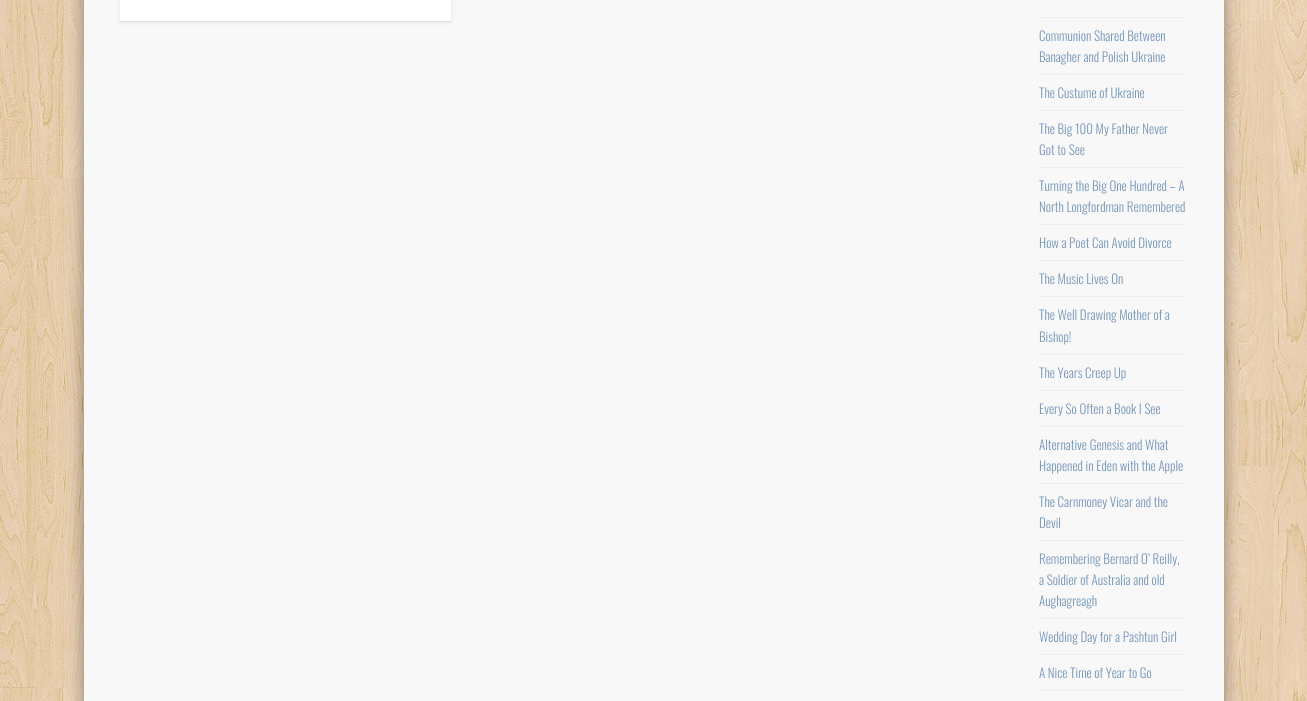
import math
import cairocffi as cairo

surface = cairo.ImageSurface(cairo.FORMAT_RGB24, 1307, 701)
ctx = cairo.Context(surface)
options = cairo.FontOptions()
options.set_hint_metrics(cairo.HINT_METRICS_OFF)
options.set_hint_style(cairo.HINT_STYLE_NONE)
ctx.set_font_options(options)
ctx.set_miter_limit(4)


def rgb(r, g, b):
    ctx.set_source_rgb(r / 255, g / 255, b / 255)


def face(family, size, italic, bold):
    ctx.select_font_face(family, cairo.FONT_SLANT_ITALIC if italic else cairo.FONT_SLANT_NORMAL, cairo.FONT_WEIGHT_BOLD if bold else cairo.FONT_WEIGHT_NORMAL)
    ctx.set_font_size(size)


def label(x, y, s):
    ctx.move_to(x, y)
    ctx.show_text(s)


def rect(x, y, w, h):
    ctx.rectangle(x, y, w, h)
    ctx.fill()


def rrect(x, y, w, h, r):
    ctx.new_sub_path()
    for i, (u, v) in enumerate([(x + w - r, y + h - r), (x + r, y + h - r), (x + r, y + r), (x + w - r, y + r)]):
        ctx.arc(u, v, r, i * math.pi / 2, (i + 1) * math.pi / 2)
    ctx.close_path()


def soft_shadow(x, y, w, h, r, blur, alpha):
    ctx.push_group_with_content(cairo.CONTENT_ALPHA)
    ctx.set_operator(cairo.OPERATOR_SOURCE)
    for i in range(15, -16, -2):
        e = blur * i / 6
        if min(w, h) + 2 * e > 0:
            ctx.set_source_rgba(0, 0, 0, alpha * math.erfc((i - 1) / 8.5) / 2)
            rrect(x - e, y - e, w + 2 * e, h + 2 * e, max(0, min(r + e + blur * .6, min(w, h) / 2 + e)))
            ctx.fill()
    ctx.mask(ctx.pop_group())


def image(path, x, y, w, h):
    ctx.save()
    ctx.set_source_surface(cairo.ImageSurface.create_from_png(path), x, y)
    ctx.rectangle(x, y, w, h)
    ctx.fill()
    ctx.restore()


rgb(255, 255, 255)
ctx.paint()
image('image0.png', 0, 0, 1307, 701)
rgb(0, 0, 0)
soft_shadow(84, -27, 1140, 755, 0, 9, 0.4)
rgb(248, 248, 248)
rect(84, 0, 1140, 701)
rgb(0, 0, 0)
soft_shadow(120, -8, 331, 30, 0, 2.5, 0.1)
rgb(255, 255, 255)
rect(120, 0, 331, 21)
rgb(222, 222, 222)
rect(120, 21, 331, 1)
rgb(238, 238, 238)
rect(1039, 17, 147, 1)
rect(1039, 74, 147, 1)
face('Oswald Light', 13, 0, 0)
rgb(117, 151, 185)
label(1039, 41, 'Communion Shared Between')
label(1039, 62, 'Banagher and Polish Ukraine')
rgb(238, 238, 238)
rect(1039, 110, 147, 1)
rgb(117, 151, 185)
label(1039, 98, 'The Custume of Ukraine')
rgb(238, 238, 238)
rect(1039, 167, 147, 1)
rgb(117, 151, 185)
label(1039, 134, 'The Big 100 My Father Never')
label(1039, 155, 'Got to See')
rgb(238, 238, 238)
rect(1039, 224, 147, 1)
rgb(117, 151, 185)
label(1039, 191, 'Turning the Big One Hundred – A')
label(1039, 212, 'North Longfordman Remembered')
rgb(238, 238, 238)
rect(1039, 260, 147, 1)
rgb(117, 151, 185)
label(1039, 248, 'How a Poet Can Avoid Divorce')
rgb(238, 238, 238)
rect(1039, 296, 147, 1)
rgb(117, 151, 185)
label(1039, 284, 'The Music Lives On')
rgb(238, 238, 238)
rect(1039, 354, 147, 1)
rgb(117, 151, 185)
label(1039, 320, 'The Well Drawing Mother of a')
label(1039, 342, 'Bishop!')
rgb(238, 238, 238)
rect(1039, 390, 147, 1)
rgb(117, 151, 185)
label(1039, 378, 'The Years Creep Up')
rgb(238, 238, 238)
rect(1039, 426, 147, 1)
rgb(117, 151, 185)
label(1039, 414, 'Every So Often a Book I See')
rgb(238, 238, 238)
rect(1039, 483, 147, 1)
rgb(117, 151, 185)
label(1039, 450, 'Alternative Genesis and What')
label(1039, 471, 'Happened in Eden with the Apple')
rgb(238, 238, 238)
rect(1039, 540, 147, 1)
rgb(117, 151, 185)
label(1039, 507, 'The Carnmoney Vicar and the')
label(1039, 528, 'Devil')
rgb(238, 238, 238)
rect(1039, 618, 147, 1)
rgb(117, 151, 185)
label(1039, 564, 'Remembering Bernard O’ Reilly,')
label(1039, 585, 'a Soldier of Australia and old')
label(1039, 606, 'Aughagreagh')
rgb(238, 238, 238)
rect(1039, 654, 147, 1)
rgb(117, 151, 185)
label(1039, 642, 'Wedding Day for a Pashtun Girl')
rgb(238, 238, 238)
rect(1039, 690, 147, 1)
rgb(117, 151, 185)
label(1039, 678, 'A Nice Time of Year to Go')
surface.write_to_png('render.png')
